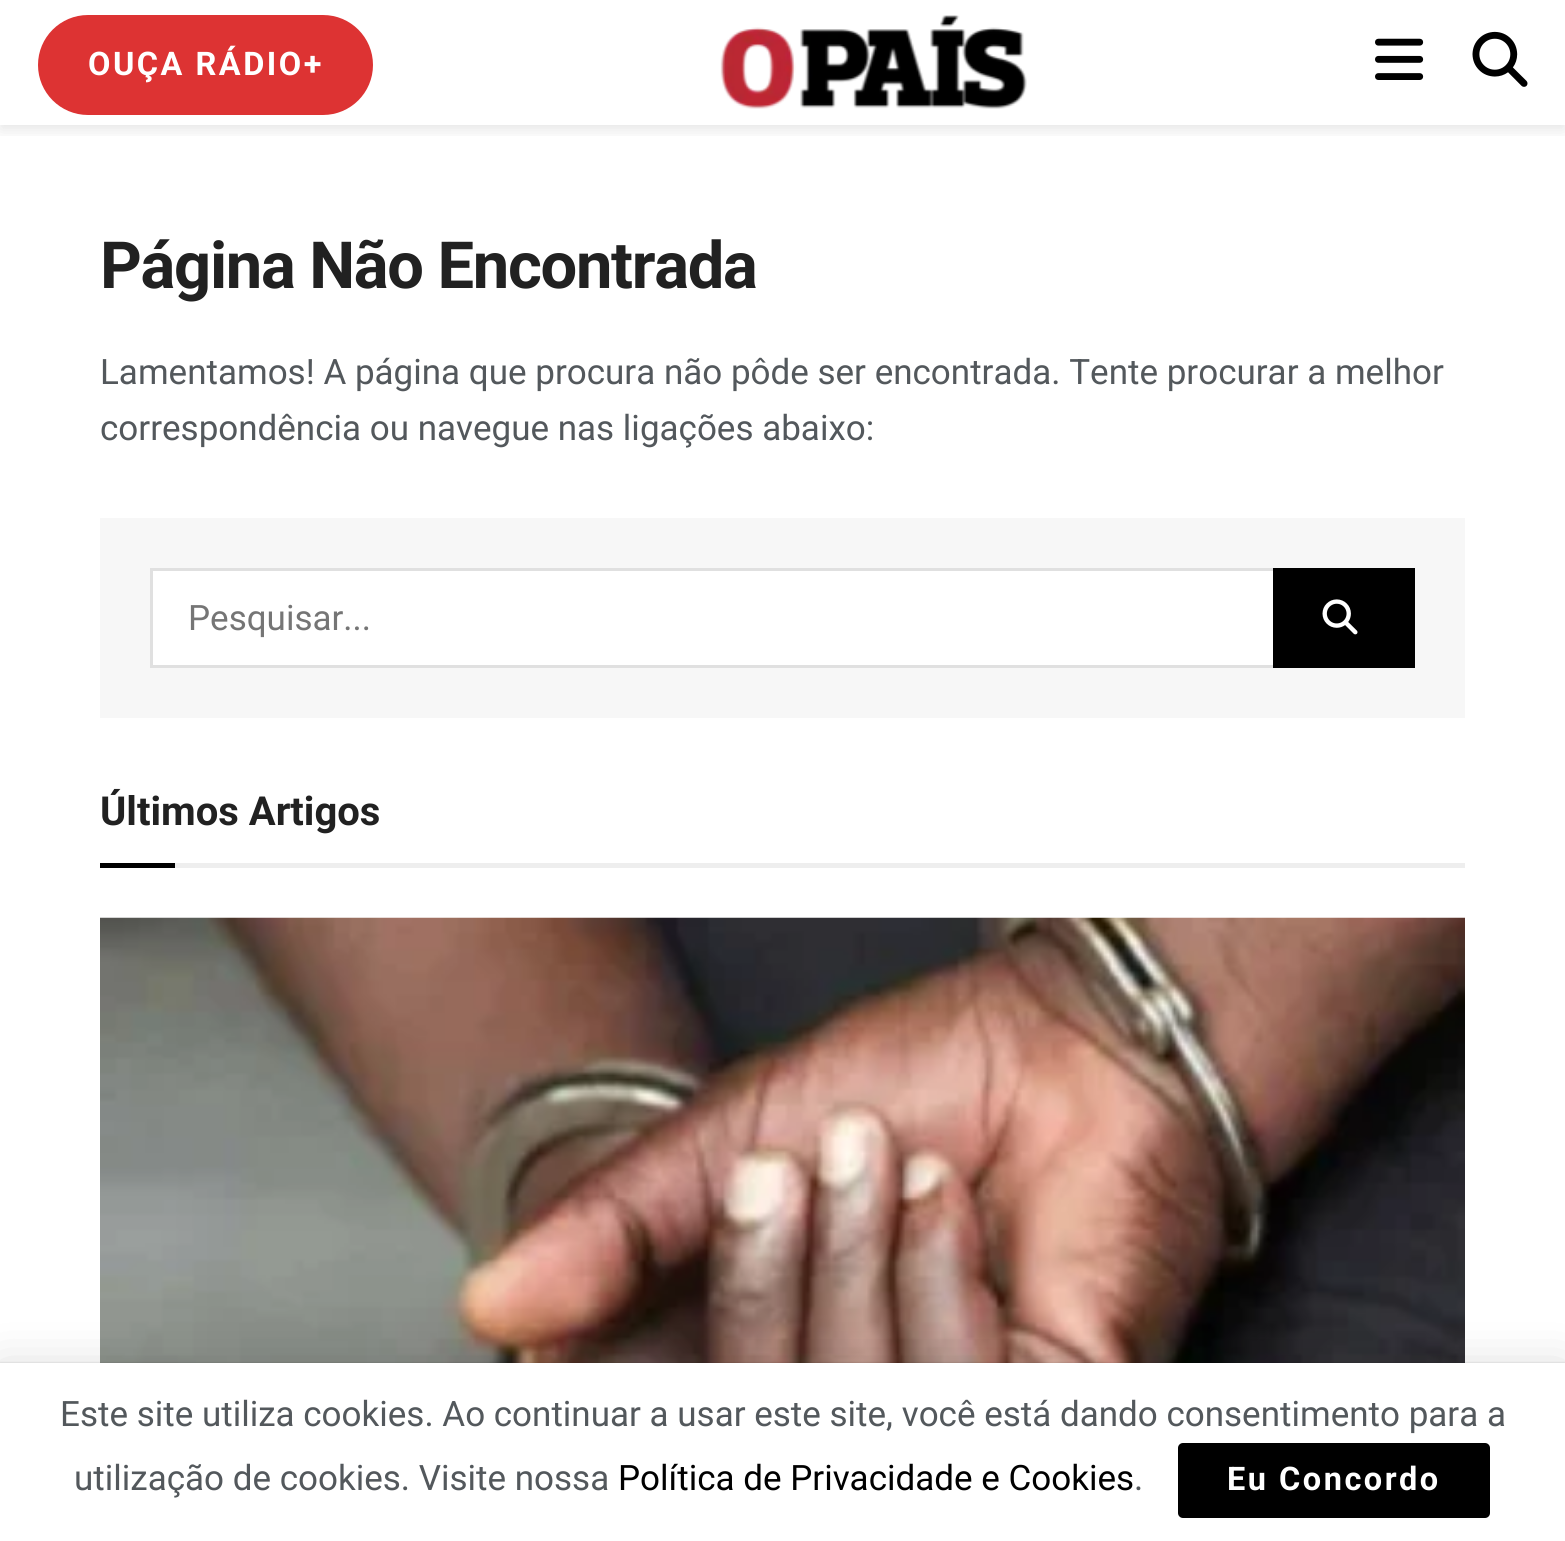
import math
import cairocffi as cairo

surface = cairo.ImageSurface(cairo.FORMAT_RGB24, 1565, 1541)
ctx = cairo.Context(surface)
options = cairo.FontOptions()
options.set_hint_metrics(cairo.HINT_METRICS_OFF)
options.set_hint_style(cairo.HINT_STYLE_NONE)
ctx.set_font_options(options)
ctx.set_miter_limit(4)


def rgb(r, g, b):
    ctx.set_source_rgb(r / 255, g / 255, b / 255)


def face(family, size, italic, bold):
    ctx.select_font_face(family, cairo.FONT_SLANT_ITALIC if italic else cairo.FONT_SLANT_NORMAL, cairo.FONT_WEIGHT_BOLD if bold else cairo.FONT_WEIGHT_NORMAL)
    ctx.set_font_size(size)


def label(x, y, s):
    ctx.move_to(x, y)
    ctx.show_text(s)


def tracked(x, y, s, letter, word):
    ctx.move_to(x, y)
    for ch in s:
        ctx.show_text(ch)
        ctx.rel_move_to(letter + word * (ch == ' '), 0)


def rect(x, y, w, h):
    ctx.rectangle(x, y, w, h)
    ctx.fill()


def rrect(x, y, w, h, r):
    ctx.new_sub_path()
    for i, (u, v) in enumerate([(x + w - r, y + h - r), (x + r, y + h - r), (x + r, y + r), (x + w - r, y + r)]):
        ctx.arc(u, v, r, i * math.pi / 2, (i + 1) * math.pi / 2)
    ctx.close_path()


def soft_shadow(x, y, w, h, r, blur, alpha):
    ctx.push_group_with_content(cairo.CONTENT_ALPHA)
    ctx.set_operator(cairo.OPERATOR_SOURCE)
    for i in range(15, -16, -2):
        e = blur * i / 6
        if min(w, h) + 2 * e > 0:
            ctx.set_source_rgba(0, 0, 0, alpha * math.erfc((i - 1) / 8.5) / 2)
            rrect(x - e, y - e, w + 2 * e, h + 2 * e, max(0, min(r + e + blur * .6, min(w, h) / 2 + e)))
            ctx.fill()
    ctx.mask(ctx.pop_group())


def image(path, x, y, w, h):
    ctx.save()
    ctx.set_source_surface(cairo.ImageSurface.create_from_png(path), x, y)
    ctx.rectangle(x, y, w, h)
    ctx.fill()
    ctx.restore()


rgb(255, 255, 255)
ctx.paint()
ctx.save()
ctx.rectangle(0, 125, 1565, 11)
ctx.clip()
rgb(0, 0, 0)
soft_shadow(0, 5, 1565, 125, 0, 7.5, 0.1)
ctx.restore()
rgb(221, 51, 51)
rrect(38, 15, 335, 100, 50)
ctx.fill()
face('Roboto', 32.5, 0, 1)
rgb(255, 255, 255)
tracked(88, 75, 'OUÇA RÁDIO+', 2.5, 0)
image('image0.png', 720, 15, 307, 94)
image('image1.png', 1375, 38, 49, 42)
image('image2.png', 1472, 31, 56, 56)
face('Roboto', 65, 0, 1)
rgb(33, 33, 33)
tracked(100, 288, 'Página Não Encontrada', -1.3, 0)
face('Roboto', 35, 0, 0)
rgb(83, 88, 92)
label(100, 384, 'Lamentamos! A página que procura não pôde ser encontrada. Tente procurar a melhor')
label(100, 440, 'correspondência ou navegue nas ligações abaixo:')
rgb(247, 247, 247)
rect(100, 518, 1365, 200)
rgb(255, 255, 255)
rect(153, 571, 1120, 94)
ctx.rectangle(151.5, 569.5, 1262, 97)
rgb(224, 224, 224)
ctx.set_line_width(3)
ctx.stroke()
rgb(117, 117, 117)
label(188, 630, 'Pesquisar...')
rgb(0, 0, 0)
rect(1273, 568, 142, 100)
image('image3.png', 1322, 599, 36, 36)
rgb(238, 238, 238)
rect(175, 863, 1290, 5)
face('Roboto', 40, 0, 1)
rgb(33, 33, 33)
label(100, 825, 'Últimos Artigos')
rgb(0, 0, 0)
rect(100, 863, 75, 5)
image('image4.png', 100, 917, 1365, 446)
rgb(0, 0, 0)
soft_shadow(0, 1368, 1565, 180, 0, 25, 0.15)
soft_shadow(0, 1363, 1565, 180, 0, 1, 0.2)
rgb(255, 255, 255)
rect(0, 1363, 1565, 178)
face('Roboto', 35, 0, 0)
rgb(83, 88, 92)
label(60, 1426, 'Este site utiliza cookies. Ao continuar a usar este site, você está dando consentimento para a')
label(74, 1490, 'utilização de cookies. Visite nossa')
rgb(0, 0, 0)
label(618, 1490, 'Política de Privacidade e Cookies')
rgb(83, 88, 92)
label(1134, 1490, '.')
rgb(0, 0, 0)
rrect(1178, 1443, 312, 75, 5)
ctx.fill()
face('Roboto', 32.5, 0, 1)
rgb(255, 255, 255)
tracked(1227, 1490, 'Eu Concordo', 2.5, 0)
surface.write_to_png('render.png')
